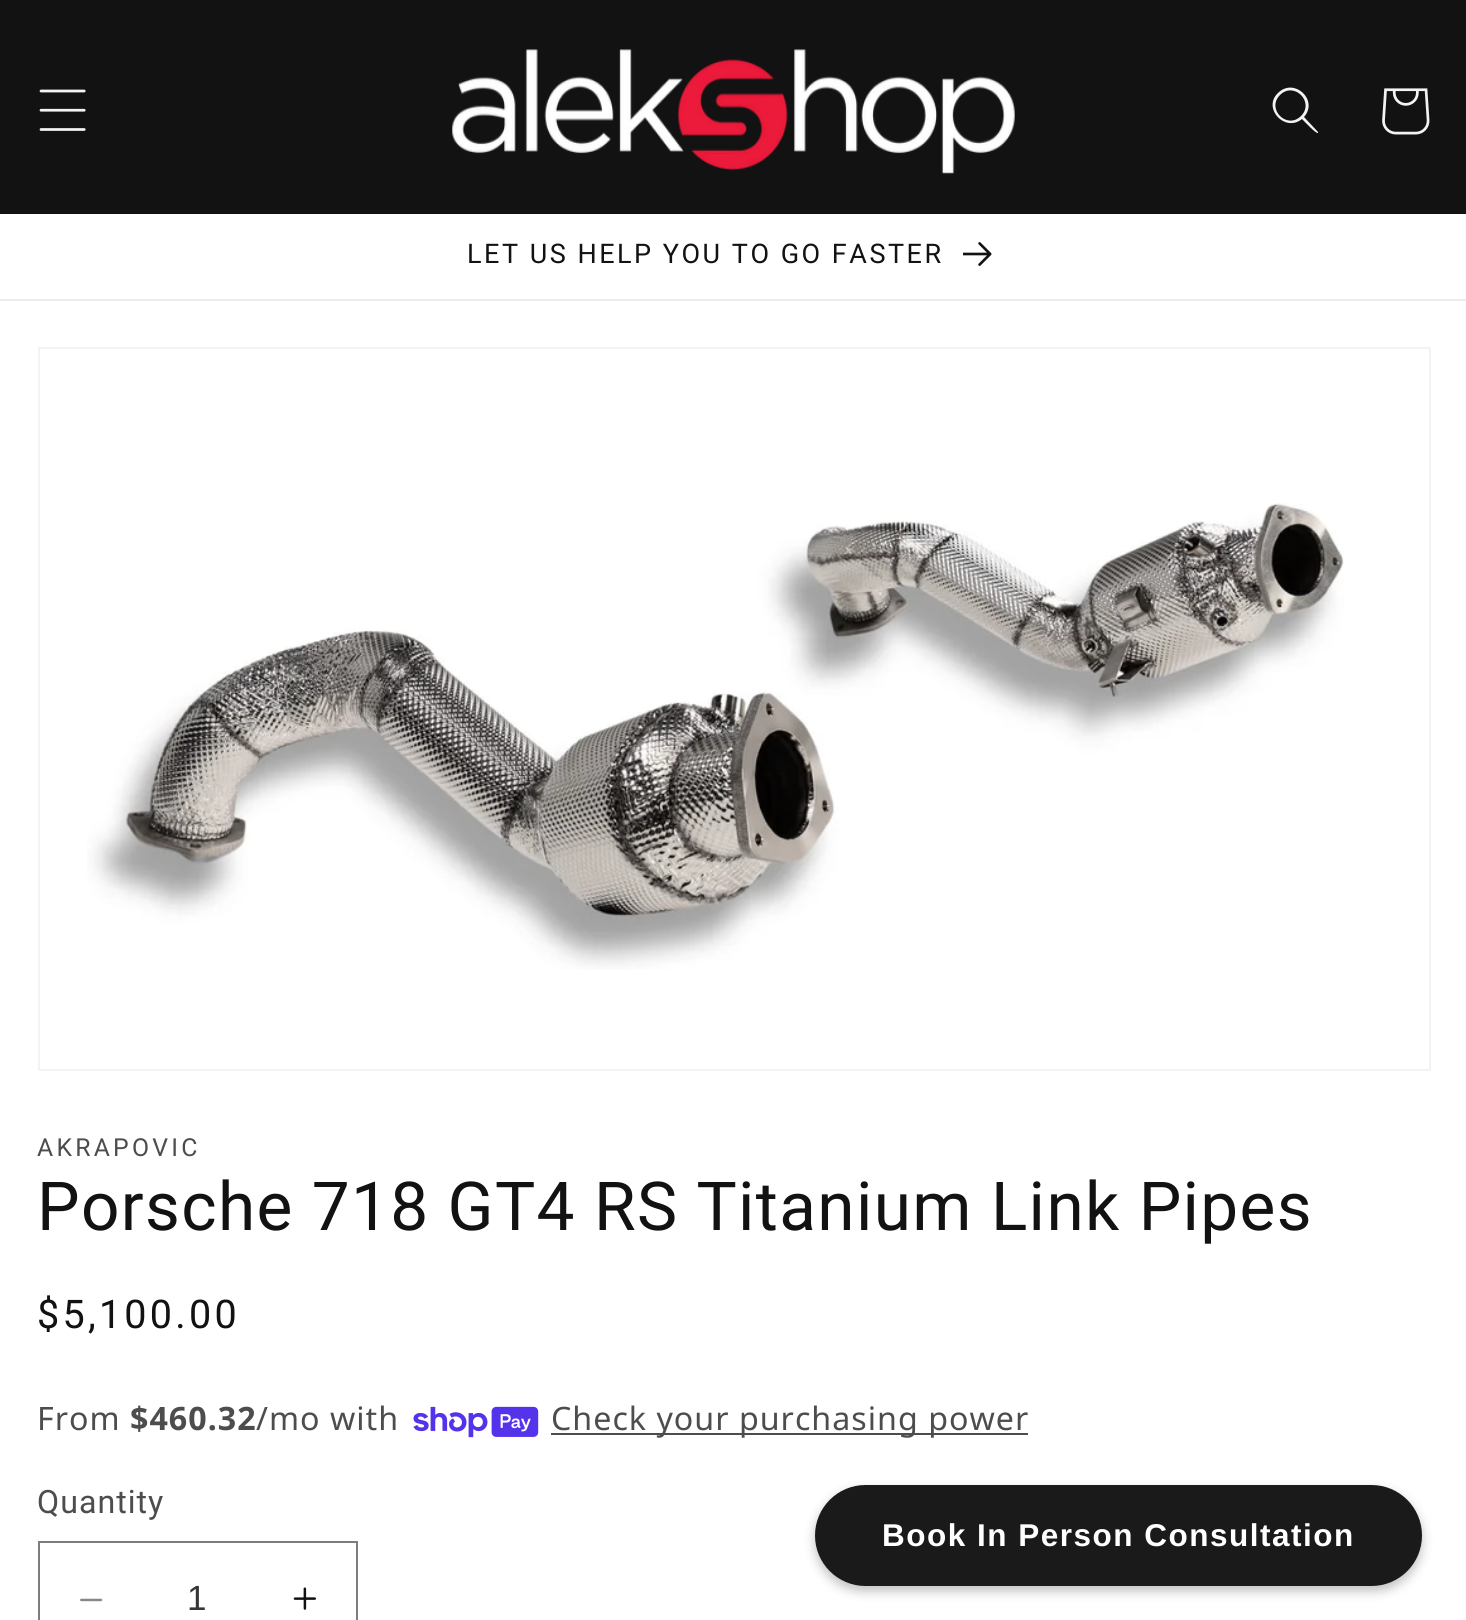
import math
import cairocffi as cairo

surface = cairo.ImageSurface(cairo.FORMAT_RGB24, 1466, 1620)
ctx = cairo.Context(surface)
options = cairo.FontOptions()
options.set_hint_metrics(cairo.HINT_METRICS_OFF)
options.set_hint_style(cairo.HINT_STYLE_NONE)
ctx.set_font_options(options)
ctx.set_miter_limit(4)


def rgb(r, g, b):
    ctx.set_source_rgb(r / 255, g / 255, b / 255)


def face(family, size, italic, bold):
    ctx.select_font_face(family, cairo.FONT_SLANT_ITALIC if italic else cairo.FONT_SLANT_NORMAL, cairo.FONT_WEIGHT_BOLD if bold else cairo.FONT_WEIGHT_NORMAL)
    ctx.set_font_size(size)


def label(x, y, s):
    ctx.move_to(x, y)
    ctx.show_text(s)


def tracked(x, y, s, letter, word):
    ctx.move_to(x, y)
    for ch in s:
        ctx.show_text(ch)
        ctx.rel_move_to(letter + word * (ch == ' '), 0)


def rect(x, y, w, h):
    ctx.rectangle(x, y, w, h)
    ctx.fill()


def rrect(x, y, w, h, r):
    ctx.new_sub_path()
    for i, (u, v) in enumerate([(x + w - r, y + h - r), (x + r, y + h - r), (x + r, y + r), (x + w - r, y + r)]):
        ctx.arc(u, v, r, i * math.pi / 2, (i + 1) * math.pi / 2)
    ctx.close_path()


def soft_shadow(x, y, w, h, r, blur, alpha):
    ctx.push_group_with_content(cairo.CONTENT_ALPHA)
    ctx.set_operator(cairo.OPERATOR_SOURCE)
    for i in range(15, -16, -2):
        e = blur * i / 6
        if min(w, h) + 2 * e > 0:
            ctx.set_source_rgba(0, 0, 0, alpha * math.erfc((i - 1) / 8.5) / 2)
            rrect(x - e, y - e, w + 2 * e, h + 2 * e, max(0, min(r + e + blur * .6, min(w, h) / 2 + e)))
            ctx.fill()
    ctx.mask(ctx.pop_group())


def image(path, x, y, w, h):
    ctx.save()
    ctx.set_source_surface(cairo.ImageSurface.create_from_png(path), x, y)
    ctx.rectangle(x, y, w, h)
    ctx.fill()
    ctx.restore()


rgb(255, 255, 255)
ctx.paint()
rgb(18, 18, 18)
rect(0, 0, 1466, 214)
image('image0.png', 39, 89, 47, 42)
image('image1.png', 452, 49, 563, 125)
rgb(243, 243, 243)
ctx.set_fill_rule(cairo.FILL_RULE_EVEN_ODD)
ctx.new_path()
ctx.move_to(1301, 116)
ctx.curve_to(1287, 130, 1266, 109, 1280, 95)
ctx.curve_to(1294, 81, 1315, 102, 1301, 116)
ctx.close_path()
ctx.move_to(1302, 119)
ctx.curve_to(1285, 133, 1262, 108, 1278, 93)
ctx.curve_to(1294, 77, 1319, 100, 1304, 117)
ctx.line_to(1318, 132)
ctx.line_to(1318, 133)
ctx.curve_to(1316, 134, 1304, 121, 1302, 119)
ctx.close_path()
ctx.fill()
image('image2.png', 1382, 88, 48, 47)
rgb(236, 236, 236)
rect(0, 299, 1466, 2)
face('Roboto', 27, 0, 0)
rgb(18, 18, 18)
tracked(467, 263, 'LET US HELP YOU TO GO FASTER', 2.5, 0)
image('image3.png', 963, 242, 29, 24)
ctx.rectangle(39, 348, 1391, 722)
rgb(243, 243, 243)
ctx.stroke()
image('image4.png', 87, 503, 1257, 467)
face('Roboto', 24.75, 0, 0)
rgb(77, 77, 77)
tracked(37, 1156, 'AKRAPOVIC', 3.25, 0)
face('Roboto', 67.5, 0, 0)
rgb(18, 18, 18)
tracked(37, 1230, 'Porsche 718 GT4 RS Titanium Link Pipes', 1.35, 0)
face('Roboto', 39.5, 0, 0)
tracked(37, 1328, '$5,100.00', 3.25, 0)
face('Noto Sans', 32.2, 0, 0)
rgb(77, 77, 77)
tracked(37, 1430, 'From', 1, 0)
face('Noto Sans', 32.2, 0, 1)
tracked(130, 1430, '$460.32', 1, 0)
face('Noto Sans', 32.2, 0, 0)
tracked(256, 1430, '/mo with', 1, 0)
image('image5.png', 413, 1406, 126, 32)
rect(551, 1433, 477, 2)
tracked(551, 1430, 'Check your purchasing power', 1, 0)
face('Roboto', 32.2, 0, 0)
tracked(37, 1513, 'Quantity', 1, 0)
image('image6.png', 80, 1598, 23, 4)
image('image7.png', 293, 1587, 23, 23)
ctx.rectangle(39, 1542, 318, 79)
rgb(125, 125, 125)
ctx.stroke()
face('Liberation Sans', 35, 0, 0)
rgb(54, 54, 54)
label(187, 1610, '1')
rgb(0, 0, 0)
soft_shadow(815, 1490, 607, 101, 50.5, 5.5, 0.25)
rgb(26, 26, 26)
rrect(815, 1485, 607, 101, 50.5)
ctx.fill()
face('Liberation Sans', 31.5, 0, 1)
rgb(255, 255, 255)
tracked(882, 1546, 'Book In Person Consultation', 1.5, 0)
surface.write_to_png('render.png')
